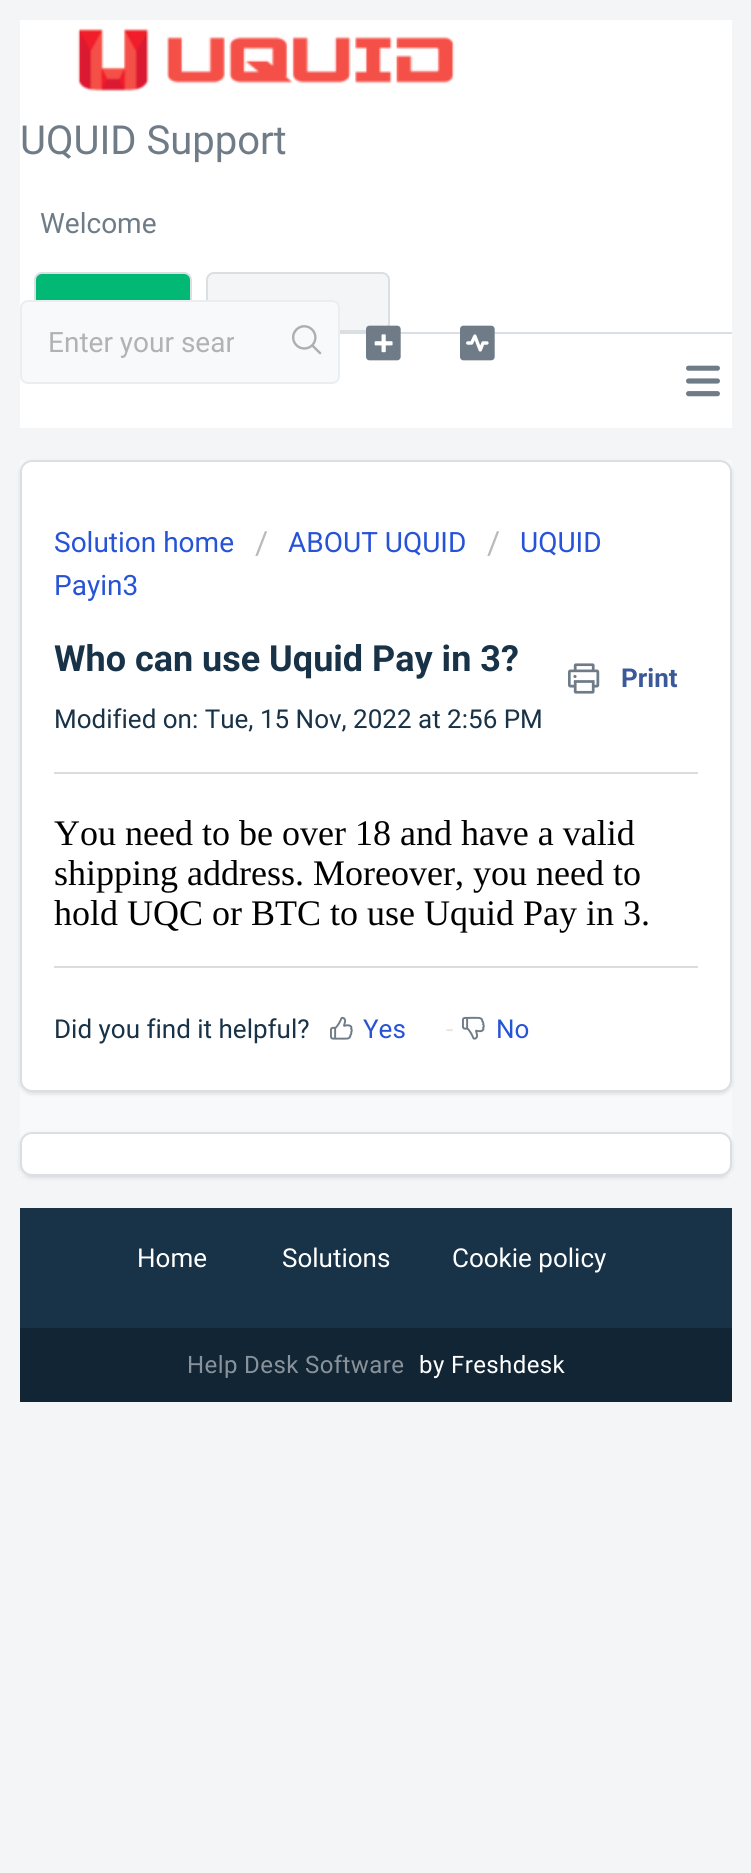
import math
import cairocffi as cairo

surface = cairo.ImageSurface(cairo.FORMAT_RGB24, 751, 1873)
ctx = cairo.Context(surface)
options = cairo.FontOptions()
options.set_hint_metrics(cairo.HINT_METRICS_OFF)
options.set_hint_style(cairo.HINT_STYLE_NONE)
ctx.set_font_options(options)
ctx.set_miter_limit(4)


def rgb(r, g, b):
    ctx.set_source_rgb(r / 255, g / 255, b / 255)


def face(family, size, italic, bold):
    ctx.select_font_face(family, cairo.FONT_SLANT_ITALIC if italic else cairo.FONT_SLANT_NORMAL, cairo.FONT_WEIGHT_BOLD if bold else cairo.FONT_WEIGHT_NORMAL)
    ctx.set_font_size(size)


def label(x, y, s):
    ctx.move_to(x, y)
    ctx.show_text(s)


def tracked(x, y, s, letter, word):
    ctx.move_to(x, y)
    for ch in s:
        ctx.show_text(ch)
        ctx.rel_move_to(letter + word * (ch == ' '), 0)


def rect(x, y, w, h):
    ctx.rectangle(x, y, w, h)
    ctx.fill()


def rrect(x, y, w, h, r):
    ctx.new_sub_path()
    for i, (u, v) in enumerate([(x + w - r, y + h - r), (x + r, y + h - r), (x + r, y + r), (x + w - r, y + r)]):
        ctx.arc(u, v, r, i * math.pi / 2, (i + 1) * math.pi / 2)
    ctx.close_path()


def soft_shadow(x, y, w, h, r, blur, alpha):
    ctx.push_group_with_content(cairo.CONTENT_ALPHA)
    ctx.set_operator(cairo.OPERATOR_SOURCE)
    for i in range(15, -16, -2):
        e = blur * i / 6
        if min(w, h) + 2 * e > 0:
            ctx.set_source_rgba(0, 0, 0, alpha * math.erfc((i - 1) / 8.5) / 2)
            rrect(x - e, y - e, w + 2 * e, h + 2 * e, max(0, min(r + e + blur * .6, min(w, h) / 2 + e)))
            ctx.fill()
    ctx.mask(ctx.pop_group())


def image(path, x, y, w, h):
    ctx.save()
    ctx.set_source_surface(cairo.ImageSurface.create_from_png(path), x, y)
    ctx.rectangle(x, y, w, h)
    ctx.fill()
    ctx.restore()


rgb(243, 245, 247)
ctx.paint()
rgb(255, 255, 255)
rect(20, 20, 712, 312)
rgb(218, 223, 227)
rect(340, 332, 392, 2)
image('image0.png', 77, 28, 378, 64)
face('Roboto', 40, 0, 0)
rgb(111, 124, 135)
label(20, 154, 'UQUID Support')
face('Roboto', 28, 0, 0)
label(40, 233, 'Welcome')
rgb(2, 184, 117)
rrect(35, 273, 156, 58, 7)
ctx.fill_preserve()
rgb(218, 223, 227)
ctx.stroke()
rgb(243, 245, 247)
rrect(207, 273, 182, 58, 7)
ctx.fill_preserve()
rgb(218, 223, 227)
ctx.stroke()
rgb(255, 255, 255)
rect(20, 334, 712, 94)
rgb(248, 249, 250)
rrect(21, 301, 318, 82, 7)
ctx.fill_preserve()
rgb(235, 238, 240)
ctx.stroke()
ctx.save()
ctx.rectangle(48, 326, 186, 32)
ctx.clip()
rgb(178, 178, 178)
label(48, 352, 'Enter your sear')
ctx.restore()
image('image1.png', 292, 325, 30, 30)
image('image2.png', 366, 325, 35, 36)
image('image3.png', 460, 325, 35, 36)
image('image4.png', 686, 365, 34, 32)
rgb(248, 249, 250)
rect(20, 460, 712, 716)
rgb(63, 63, 68)
soft_shadow(20, 462, 712, 632, 12, 2, 0.15)
rgb(255, 255, 255)
rrect(21, 461, 710, 630, 11)
ctx.fill_preserve()
rgb(218, 223, 227)
ctx.stroke()
rgb(39, 83, 215)
label(54, 552, 'Solution home')
face('Roboto', 32, 0, 0)
rgb(187, 187, 187)
label(255, 554, '/')
face('Roboto', 28, 0, 0)
rgb(39, 83, 215)
label(288, 552, 'ABOUT UQUID')
face('Roboto', 32, 0, 0)
rgb(187, 187, 187)
label(487, 554, '/')
face('Roboto', 28, 0, 0)
rgb(39, 83, 215)
label(520, 552, 'UQUID')
label(54, 595, 'Payin3')
face('Roboto', 36, 0, 1)
rgb(24, 50, 71)
label(54, 671, 'Who can use Uquid Pay in 3?')
image('image5.png', 568, 663, 32, 31)
face('Roboto', 26, 0, 1)
rgb(59, 89, 152)
label(621, 687, 'Print')
face('Roboto', 26, 0, 0)
rgb(24, 50, 71)
label(54, 728, 'Modified on: Tue, 15 Nov, 2022 at 2:56 PM')
rgb(220, 220, 220)
rect(54, 772, 644, 2)
face('Liberation Serif', 36, 0, 0)
rgb(0, 0, 0)
label(54, 845, 'You need to be over 18 and have a valid')
label(54, 885, 'shipping address. Moreover, you need to')
label(54, 925, 'hold UQC or BTC to use Uquid Pay in 3.')
rgb(220, 220, 220)
rect(54, 966, 644, 2)
face('Roboto', 26, 0, 0)
rgb(24, 50, 71)
label(54, 1038, 'Did you find it helpful?')
image('image6.png', 330, 1016, 23, 24)
rgb(39, 83, 215)
label(363, 1038, 'Yes')
rgb(229, 229, 229)
label(446, 1038, '-')
image('image7.png', 462, 1016, 23, 24)
rgb(39, 83, 215)
label(496, 1038, 'No')
rgb(63, 63, 68)
soft_shadow(20, 1134, 712, 44, 12, 2, 0.15)
rgb(255, 255, 255)
rrect(21, 1133, 710, 42, 11)
ctx.fill_preserve()
rgb(218, 223, 227)
ctx.stroke()
rgb(24, 50, 71)
rect(20, 1208, 712, 120)
rgb(255, 255, 255)
label(137, 1267, 'Home')
label(282, 1267, 'Solutions')
label(452, 1267, 'Cookie policy')
rgb(18, 37, 52)
rect(20, 1328, 712, 74)
face('Roboto', 24, 0, 0)
rgb(137, 146, 154)
tracked(187, 1373, 'Help Desk Software', 0.4, 0)
rgb(255, 255, 255)
tracked(419, 1373, 'by Freshdesk', 0.4, 0)
surface.write_to_png('render.png')
